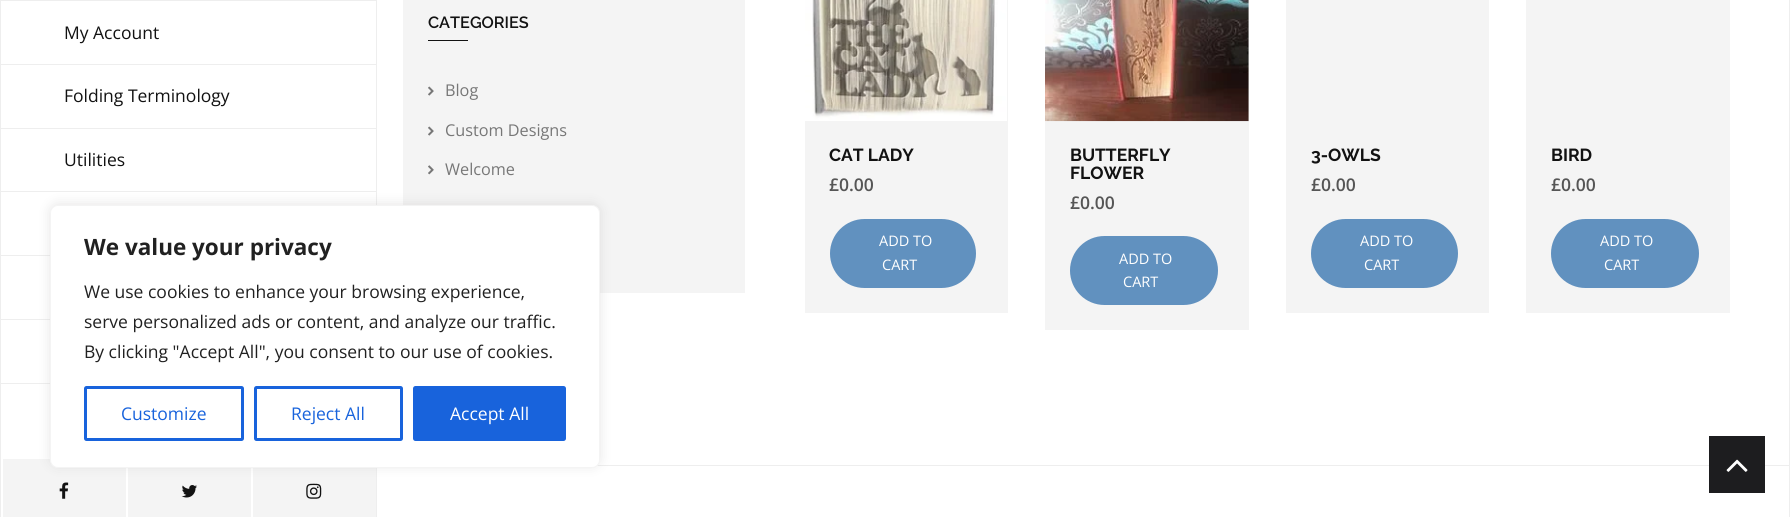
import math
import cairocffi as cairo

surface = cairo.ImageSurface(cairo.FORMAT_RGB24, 1790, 517)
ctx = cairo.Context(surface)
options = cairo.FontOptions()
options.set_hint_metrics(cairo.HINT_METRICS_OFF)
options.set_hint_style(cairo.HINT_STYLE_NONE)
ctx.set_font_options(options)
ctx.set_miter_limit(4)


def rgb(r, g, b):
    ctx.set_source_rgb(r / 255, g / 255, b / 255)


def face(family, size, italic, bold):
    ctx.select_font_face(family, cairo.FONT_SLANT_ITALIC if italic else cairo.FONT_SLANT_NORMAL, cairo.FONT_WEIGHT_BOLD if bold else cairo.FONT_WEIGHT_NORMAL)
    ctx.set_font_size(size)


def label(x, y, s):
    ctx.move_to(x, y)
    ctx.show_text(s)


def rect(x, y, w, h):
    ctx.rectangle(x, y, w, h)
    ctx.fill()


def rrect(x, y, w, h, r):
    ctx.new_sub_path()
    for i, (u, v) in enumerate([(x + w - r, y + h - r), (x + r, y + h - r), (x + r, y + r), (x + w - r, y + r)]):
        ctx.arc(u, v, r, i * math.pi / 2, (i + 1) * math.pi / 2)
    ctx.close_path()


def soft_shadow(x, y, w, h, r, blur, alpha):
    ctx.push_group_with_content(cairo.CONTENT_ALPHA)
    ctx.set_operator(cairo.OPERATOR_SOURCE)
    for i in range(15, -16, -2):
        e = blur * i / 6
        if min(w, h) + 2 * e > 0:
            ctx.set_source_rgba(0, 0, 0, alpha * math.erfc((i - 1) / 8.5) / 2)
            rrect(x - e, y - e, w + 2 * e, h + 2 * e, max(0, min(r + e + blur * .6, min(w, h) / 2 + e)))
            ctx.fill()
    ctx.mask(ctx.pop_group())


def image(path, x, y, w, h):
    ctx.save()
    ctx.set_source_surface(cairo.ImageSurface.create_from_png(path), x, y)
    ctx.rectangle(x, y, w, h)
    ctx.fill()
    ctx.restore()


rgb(255, 255, 255)
ctx.paint()
ctx.rectangle(0.5, -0.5, 1789, 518)
rgb(238, 238, 238)
ctx.set_line_width(1)
ctx.stroke()
rect(376, 0, 1, 517)
rect(1, 0, 375, 1)
face('Open Sans', 17.5, 0, 0)
rgb(18, 18, 18)
label(64, 39, 'My Account')
rgb(238, 238, 238)
rect(1, 64, 375, 1)
rgb(18, 18, 18)
label(64, 102, 'Folding Terminology')
rgb(238, 238, 238)
rect(1, 128, 375, 1)
rgb(18, 18, 18)
label(64, 166, 'Utilities')
rgb(238, 238, 238)
rect(1, 191, 375, 1)
rect(1, 255, 49, 1)
rect(1, 319, 49, 1)
rect(1, 383, 49, 1)
rgb(244, 244, 244)
rect(3, 459, 123, 58)
image('image0.png', 59, 482, 10, 17)
rect(128, 468, 123, 49)
image('image1.png', 181, 485, 16, 13)
rect(253, 468, 123, 49)
image('image2.png', 306, 483, 16, 16)
rect(403, 0, 342, 293)
face('Raleway SemiBold', 16.25, 0, 0)
rgb(18, 18, 18)
label(428, 28, 'CATEGORIES')
rect(428, 40, 40, 1)
image('image3.png', 428, 86, 6, 10)
face('Open Sans', 16.25, 0, 0)
rgb(119, 119, 119)
label(445, 96, 'Blog')
image('image3.png', 428, 126, 6, 10)
label(445, 136, 'Custom Designs')
image('image4.png', 428, 165, 6, 10)
label(445, 175, 'Welcome')
rgb(244, 244, 244)
rect(805, 0, 203, 313)
image('image5.png', 805, 0, 202, 121)
face('Raleway', 17.5, 0, 1)
rgb(18, 18, 18)
label(829, 161, 'CAT LADY')
face('Open Sans SemiBold', 17.5, 0, 0)
rgb(86, 86, 86)
label(829, 191, '£0.00')
rgb(97, 145, 191)
rrect(830, 219, 146, 69, 34.5)
ctx.fill()
face('Open Sans', 14.5, 0, 0)
rgb(255, 255, 255)
label(879, 246, 'ADD TO')
label(882, 270, 'CART')
rgb(244, 244, 244)
rect(1045, 0, 204, 330)
image('image6.png', 1045, 0, 204, 122)
face('Raleway', 17.5, 0, 1)
rgb(18, 18, 18)
label(1070, 161, 'BUTTERFLY')
label(1070, 179, 'FLOWER')
face('Open Sans SemiBold', 17.5, 0, 0)
rgb(86, 86, 86)
label(1070, 209, '£0.00')
rgb(97, 145, 191)
rrect(1070, 236, 148, 69, 34.5)
ctx.fill()
face('Open Sans', 14.5, 0, 0)
rgb(255, 255, 255)
label(1119, 264, 'ADD TO')
label(1123, 287, 'CART')
rgb(244, 244, 244)
rect(1286, 0, 203, 313)
face('Raleway', 17.5, 0, 1)
rgb(18, 18, 18)
label(1311, 161, '3-OWLS')
face('Open Sans SemiBold', 17.5, 0, 0)
rgb(86, 86, 86)
label(1311, 191, '£0.00')
rgb(97, 145, 191)
rrect(1311, 219, 147, 69, 34.5)
ctx.fill()
face('Open Sans', 14.5, 0, 0)
rgb(255, 255, 255)
label(1360, 246, 'ADD TO')
label(1364, 270, 'CART')
rgb(244, 244, 244)
rect(1526, 0, 204, 313)
face('Raleway', 17.5, 0, 1)
rgb(18, 18, 18)
label(1551, 161, 'BIRD')
face('Open Sans SemiBold', 17.5, 0, 0)
rgb(86, 86, 86)
label(1551, 191, '£0.00')
rgb(97, 145, 191)
rrect(1551, 219, 148, 69, 34.5)
ctx.fill()
face('Open Sans', 14.5, 0, 0)
rgb(255, 255, 255)
label(1600, 246, 'ADD TO')
label(1604, 270, 'CART')
rgb(238, 238, 238)
rect(597, 465, 1192, 1)
rgb(172, 171, 171)
soft_shadow(50, 204, 550, 262, 8, 6, 0.3)
rgb(255, 255, 255)
rrect(50.5, 205.5, 549, 262, 7.5)
ctx.fill_preserve()
rgb(244, 244, 244)
ctx.stroke()
face('Open Sans', 22.5, 0, 1)
rgb(33, 33, 33)
label(84, 255, 'We value your privacy')
face('Open Sans', 17.5, 0, 0)
label(84, 298, 'We use cookies to enhance your browsing experience,')
label(84, 328, 'serve personalized ads or content, and analyze our traffic.')
label(84, 358, 'By clicking "Accept All", you consent to our use of cookies.')
rrect(85.5, 387.5, 157, 52, 1)
rgb(24, 99, 220)
ctx.set_line_width(3)
ctx.stroke()
label(121, 420, 'Customize')
rrect(255.5, 387.5, 146, 52, 1)
ctx.stroke()
label(291, 420, 'Reject All')
rrect(414.5, 387.5, 150, 52, 1)
ctx.fill_preserve()
ctx.stroke()
rgb(255, 255, 255)
label(450, 420, 'Accept All')
rgb(29, 29, 31)
rect(1709, 436, 56, 57)
image('image7.png', 1726, 459, 22, 13)
surface.write_to_png('render.png')
